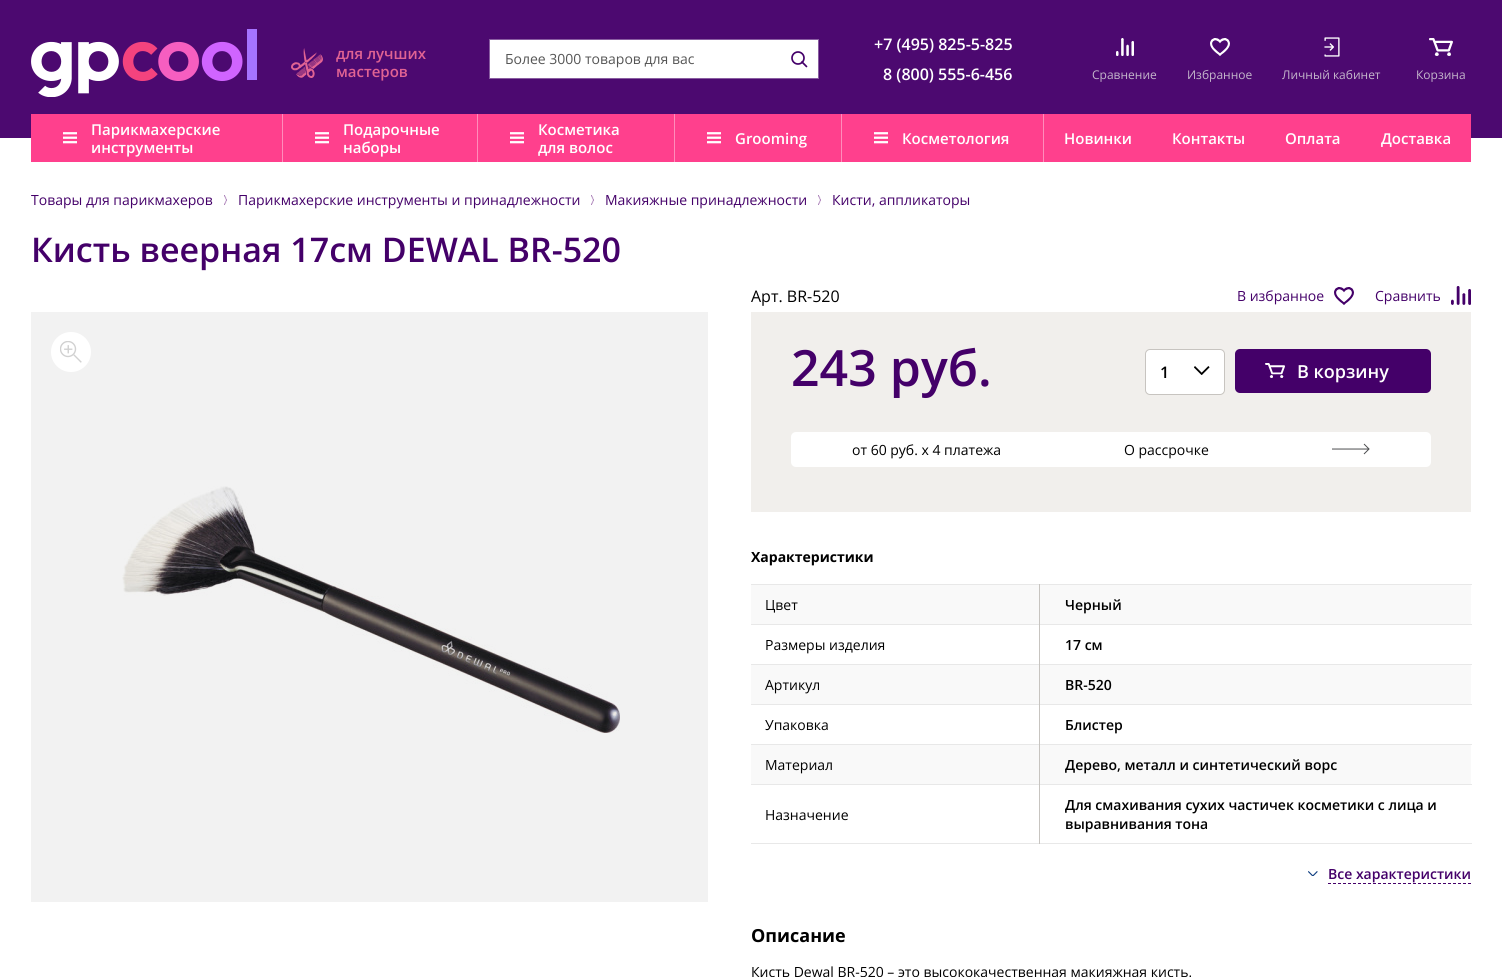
import math
import cairocffi as cairo

surface = cairo.ImageSurface(cairo.FORMAT_RGB24, 1502, 977)
ctx = cairo.Context(surface)
options = cairo.FontOptions()
options.set_hint_metrics(cairo.HINT_METRICS_OFF)
options.set_hint_style(cairo.HINT_STYLE_NONE)
ctx.set_font_options(options)
ctx.set_miter_limit(4)


def rgb(r, g, b):
    ctx.set_source_rgb(r / 255, g / 255, b / 255)


def face(family, size, italic, bold):
    ctx.select_font_face(family, cairo.FONT_SLANT_ITALIC if italic else cairo.FONT_SLANT_NORMAL, cairo.FONT_WEIGHT_BOLD if bold else cairo.FONT_WEIGHT_NORMAL)
    ctx.set_font_size(size)


def label(x, y, s):
    ctx.move_to(x, y)
    ctx.show_text(s)


def rect(x, y, w, h):
    ctx.rectangle(x, y, w, h)
    ctx.fill()


def rrect(x, y, w, h, r):
    ctx.new_sub_path()
    for i, (u, v) in enumerate([(x + w - r, y + h - r), (x + r, y + h - r), (x + r, y + r), (x + w - r, y + r)]):
        ctx.arc(u, v, r, i * math.pi / 2, (i + 1) * math.pi / 2)
    ctx.close_path()


def image(path, x, y, w, h):
    ctx.save()
    ctx.set_source_surface(cairo.ImageSurface.create_from_png(path), x, y)
    ctx.rectangle(x, y, w, h)
    ctx.fill()
    ctx.restore()


rgb(255, 255, 255)
ctx.paint()
rgb(242, 242, 242)
rect(31, 312, 677, 590)
rgb(76, 9, 112)
rect(0, 0, 1502, 138)
image('image0.png', 31, 29, 226, 68)
image('image1.png', 291, 48, 32, 30)
face('Open Sans SemiBold', 15, 0, 0)
rgb(225, 99, 147)
label(336, 59, 'для лучших')
label(336, 77, 'мастеров')
rgb(255, 255, 255)
ctx.rectangle(489.5, 39.5, 329, 39)
ctx.fill_preserve()
rgb(137, 93, 161)
ctx.set_line_width(1)
ctx.stroke()
face('Open Sans', 14, 0, 0)
rgb(85, 85, 85)
label(505, 64, 'Более 3000 товаров для вас')
ctx.new_path()
ctx.arc(798, 58, 6, 0, 2 * math.pi)
rgb(68, 0, 105)
ctx.set_line_width(1.7)
ctx.stroke()
ctx.new_path()
ctx.move_to(806.5, 66.5)
ctx.line_to(802, 62)
ctx.set_line_cap(cairo.LINE_CAP_ROUND)
ctx.set_line_join(cairo.LINE_JOIN_ROUND)
ctx.stroke()
face('Open Sans SemiBold', 16, 0, 0)
rgb(255, 255, 255)
label(874, 50, '+7 (495) 825-5-825')
label(883, 80, '8 (800) 555-6-456')
image('image2.png', 1116, 38, 18, 18)
face('Open Sans', 12, 0, 0)
rgb(196, 182, 203)
label(1092, 79, 'Сравнение')
image('image3.png', 1210, 38, 20, 18)
label(1187, 79, 'Избранное')
image('image4.png', 1324, 37, 16, 20)
label(1282, 79, 'Личный кабинет')
image('image5.png', 1429, 38, 24, 18)
label(1416, 79, 'Корзина')
rgb(255, 64, 141)
rect(31, 114, 1440, 48)
rgb(255, 141, 187)
rect(282, 114, 1, 48)
image('image6.png', 63, 132, 14, 12)
face('Open Sans SemiBold', 15, 0, 0)
rgb(255, 255, 255)
label(91, 135, 'Парикмахерские')
label(91, 153, 'инструменты')
rgb(255, 141, 187)
rect(477, 114, 1, 48)
image('image6.png', 315, 132, 14, 12)
rgb(255, 255, 255)
label(343, 135, 'Подарочные')
label(343, 153, 'наборы')
rgb(255, 141, 187)
rect(674, 114, 1, 48)
image('image6.png', 510, 132, 14, 12)
rgb(255, 255, 255)
label(538, 135, 'Косметика')
label(538, 153, 'для волос')
rgb(255, 141, 187)
rect(841, 114, 1, 48)
image('image6.png', 707, 132, 14, 12)
rgb(255, 255, 255)
label(735, 144, 'Grooming')
rgb(255, 141, 187)
rect(1043, 114, 1, 48)
image('image6.png', 874, 132, 14, 12)
rgb(255, 255, 255)
label(902, 144, 'Косметология')
label(1064, 144, 'Новинки')
label(1172, 144, 'Контакты')
label(1285, 144, 'Оплата')
label(1381, 144, 'Доставка')
face('Open Sans', 14, 0, 0)
rgb(68, 0, 105)
label(31, 205, 'Товары для парикмахеров')
image('image7.png', 224, 195, 3, 10)
label(238, 205, 'Парикмахерские инструменты и принадлежности')
image('image7.png', 591, 195, 3, 10)
label(605, 205, 'Макияжные принадлежности')
image('image7.png', 818, 195, 3, 10)
label(832, 205, 'Кисти, аппликаторы')
face('Open Sans SemiBold', 34, 0, 0)
label(31, 262, 'Кисть веерная 17см DEWAL BR-520')
rgb(255, 255, 255)
ctx.new_path()
ctx.arc(71, 352, 20, 0, 2 * math.pi)
ctx.fill()
image('image8.png', 60, 341, 22, 22)
image('image9.png', 122, 486, 498, 247)
face('Open Sans', 16, 0, 0)
rgb(0, 0, 0)
label(751, 302, 'Арт. BR-520')
image('image10.png', 1334, 287, 20, 18)
face('Open Sans', 14, 0, 0)
rgb(68, 0, 105)
label(1237, 301, 'В избранное')
image('image11.png', 1451, 286, 20, 19)
label(1375, 301, 'Сравнить')
rgb(241, 239, 236)
rect(751, 312, 720, 200)
face('Open Sans SemiBold', 50, 0, 0)
rgb(68, 0, 105)
label(791, 386, '243 руб.')
rgb(255, 255, 255)
rrect(1145.5, 349.5, 79, 45, 4.5)
ctx.fill_preserve()
rgb(199, 196, 192)
ctx.set_line_width(1)
ctx.set_line_cap(cairo.LINE_CAP_BUTT)
ctx.set_line_join(cairo.LINE_JOIN_MITER)
ctx.stroke()
face('Open Sans SemiBold', 16, 0, 0)
rgb(0, 0, 0)
label(1160, 378, '1')
image('image12.png', 1194, 366, 16, 9)
rgb(68, 0, 105)
rrect(1235, 349, 196, 44, 5)
ctx.fill()
image('image13.png', 1265, 363, 20, 15)
face('Open Sans SemiBold', 18, 0, 0)
rgb(255, 255, 255)
label(1297, 378, 'В корзину')
rrect(791, 432, 640, 35, 5)
ctx.fill()
face('Open Sans', 14, 0, 0)
rgb(0, 0, 0)
label(852, 455, 'от 60 руб. х 4 платежа')
label(1124, 455, 'О рассрочке')
ctx.new_path()
ctx.move_to(1332, 449)
ctx.line_to(1369, 449)
ctx.move_to(1364, 444)
ctx.line_to(1369, 449)
ctx.line_to(1364, 454)
rgb(76, 77, 79)
ctx.stroke()
face('Open Sans', 14, 0, 1)
rgb(0, 0, 0)
label(751, 562, 'Характеристики')
rgb(249, 249, 249)
rect(751, 585, 720, 39)
rgb(232, 232, 232)
rect(751, 584, 721, 1)
rect(751, 624, 721, 1)
face('Open Sans', 14, 0, 0)
rgb(0, 0, 0)
label(765, 610, 'Цвет')
face('Open Sans SemiBold', 14, 0, 0)
label(1065, 610, 'Черный')
rgb(232, 232, 232)
rect(751, 664, 721, 1)
face('Open Sans', 14, 0, 0)
rgb(0, 0, 0)
label(765, 650, 'Размеры изделия')
face('Open Sans SemiBold', 14, 0, 0)
label(1065, 650, '17 см')
rgb(249, 249, 249)
rect(751, 665, 720, 39)
rgb(232, 232, 232)
rect(751, 704, 721, 1)
face('Open Sans', 14, 0, 0)
rgb(0, 0, 0)
label(765, 690, 'Артикул')
face('Open Sans SemiBold', 14, 0, 0)
label(1065, 690, 'BR-520')
rgb(232, 232, 232)
rect(751, 744, 721, 1)
face('Open Sans', 14, 0, 0)
rgb(0, 0, 0)
label(765, 730, 'Упаковка')
face('Open Sans SemiBold', 14, 0, 0)
label(1065, 730, 'Блистер')
rgb(249, 249, 249)
rect(751, 745, 720, 39)
rgb(232, 232, 232)
rect(751, 784, 721, 1)
face('Open Sans', 14, 0, 0)
rgb(0, 0, 0)
label(765, 770, 'Материал')
face('Open Sans SemiBold', 14, 0, 0)
label(1065, 770, 'Дерево, металл и синтетический ворс')
rgb(232, 232, 232)
rect(751, 843, 721, 1)
rgb(199, 196, 192)
rect(1039, 584, 1, 260)
face('Open Sans', 14, 0, 0)
rgb(0, 0, 0)
label(765, 820, 'Назначение')
face('Open Sans SemiBold', 14, 0, 0)
label(1065, 810, 'Для смахивания сухих частичек косметики с лица и')
label(1065, 829, 'выравнивания тона')
image('image14.png', 1308, 871, 10, 5)
rgb(68, 0, 105)
label(1328, 879, 'Все характеристики')
ctx.new_path()
ctx.move_to(1328, 883.5)
ctx.line_to(1471, 883.5)
ctx.set_dash([3, 2])
ctx.stroke()
face('Open Sans', 18, 0, 1)
rgb(0, 0, 0)
label(751, 942, 'Описание')
face('Open Sans', 14, 0, 0)
label(751, 977, 'Кисть Dewal BR-520 – это высококачественная макияжная кисть.')
surface.write_to_png('render.png')
